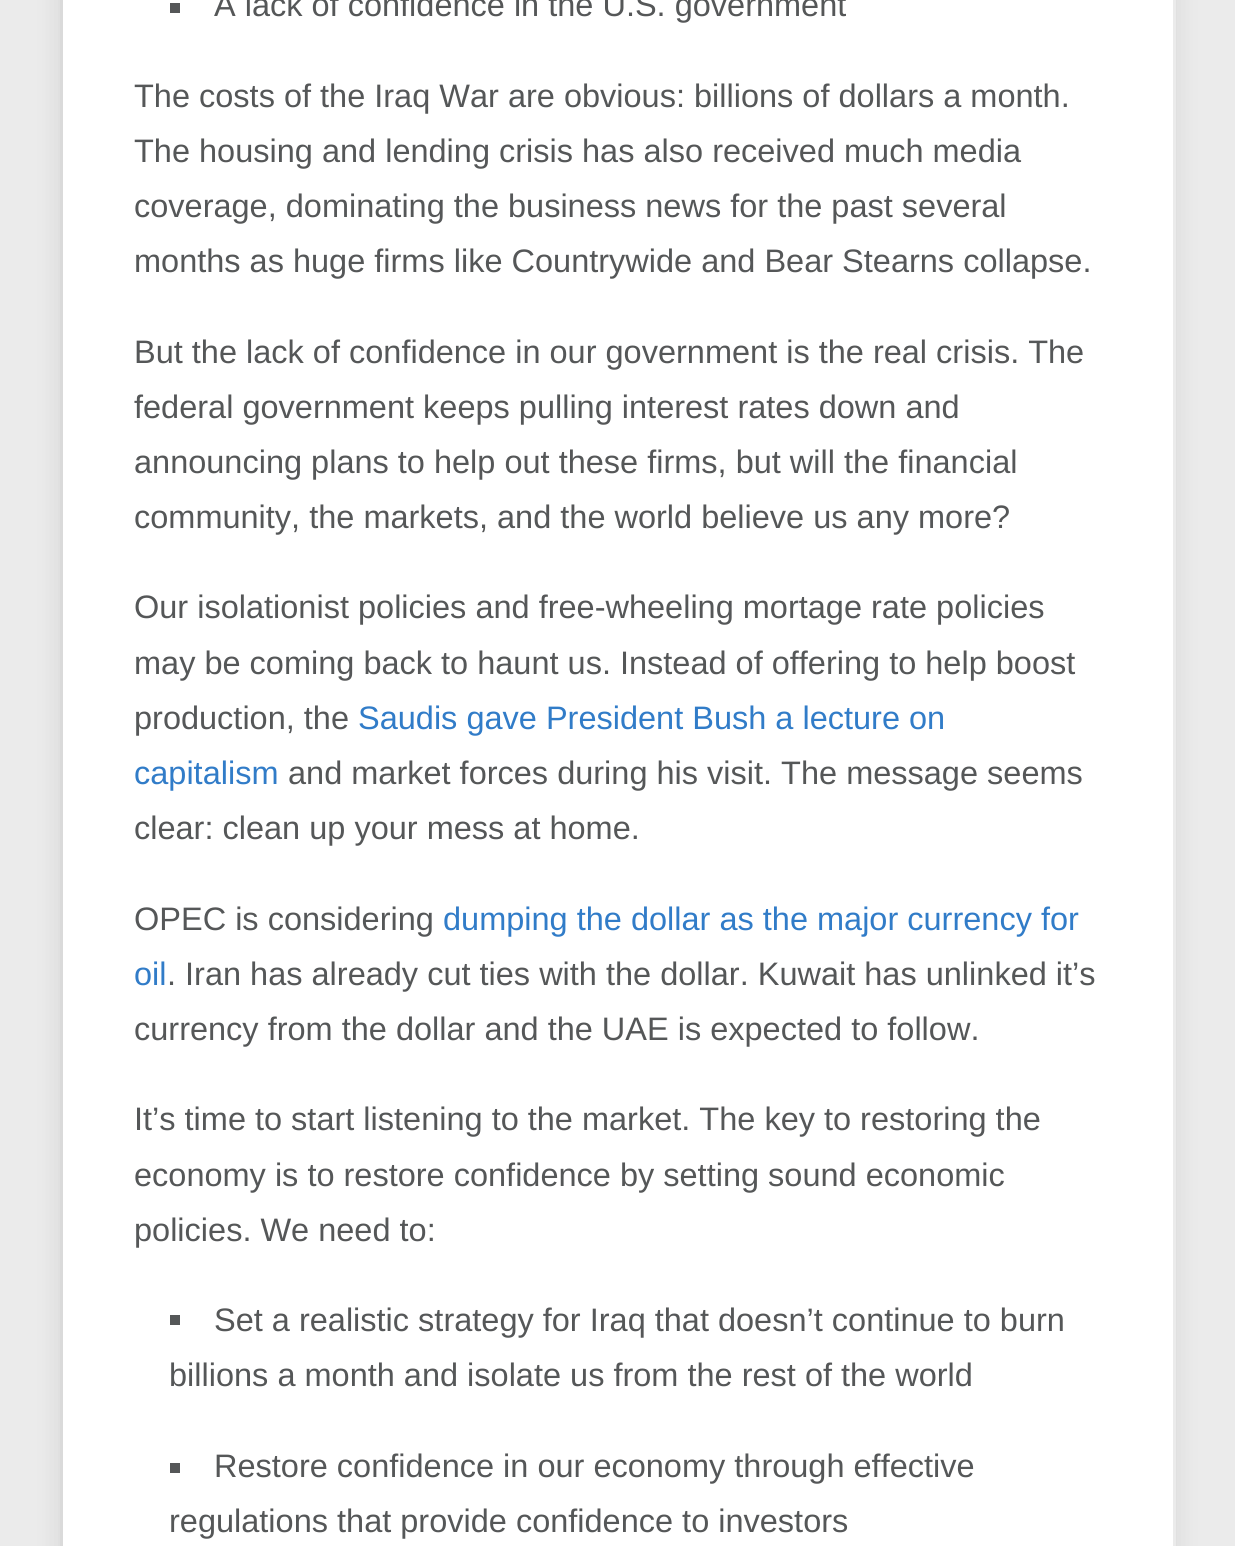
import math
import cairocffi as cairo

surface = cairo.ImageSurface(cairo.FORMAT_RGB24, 1235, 1546)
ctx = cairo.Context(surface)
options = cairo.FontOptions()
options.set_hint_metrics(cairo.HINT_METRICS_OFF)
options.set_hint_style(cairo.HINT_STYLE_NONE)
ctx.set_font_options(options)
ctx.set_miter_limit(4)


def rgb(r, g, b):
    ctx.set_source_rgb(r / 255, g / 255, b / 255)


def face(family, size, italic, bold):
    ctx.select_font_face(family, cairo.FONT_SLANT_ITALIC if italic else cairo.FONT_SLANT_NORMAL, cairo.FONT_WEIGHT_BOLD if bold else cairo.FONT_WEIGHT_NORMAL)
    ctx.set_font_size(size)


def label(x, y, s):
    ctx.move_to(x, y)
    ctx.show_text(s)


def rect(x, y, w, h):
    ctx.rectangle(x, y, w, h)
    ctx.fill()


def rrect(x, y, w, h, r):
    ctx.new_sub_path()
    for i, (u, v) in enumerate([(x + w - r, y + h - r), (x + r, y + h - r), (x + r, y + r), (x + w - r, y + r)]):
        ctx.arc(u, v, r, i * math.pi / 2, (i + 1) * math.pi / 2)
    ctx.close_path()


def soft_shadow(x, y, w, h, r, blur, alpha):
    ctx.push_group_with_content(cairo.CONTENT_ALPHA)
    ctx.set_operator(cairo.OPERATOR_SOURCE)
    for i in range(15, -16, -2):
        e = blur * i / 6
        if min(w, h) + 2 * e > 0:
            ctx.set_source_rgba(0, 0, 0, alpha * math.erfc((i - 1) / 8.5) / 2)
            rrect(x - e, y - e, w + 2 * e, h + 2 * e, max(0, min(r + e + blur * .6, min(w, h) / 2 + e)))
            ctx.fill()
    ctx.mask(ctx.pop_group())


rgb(235, 235, 235)
ctx.paint()
rgb(0, 0, 0)
soft_shadow(60, -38, 1115, 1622, 0, 12.5, 0.1)
ctx.rectangle(61.5, -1.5, 1112, 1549)
rgb(218, 218, 218)
ctx.set_line_width(3)
ctx.stroke()
rgb(255, 255, 255)
rect(63, 0, 1110, 1546)
rgb(235, 235, 235)
rect(1173, 0, 3, 1546)
rgb(85, 87, 88)
rect(170, 3, 10, 10)
face('Liberation Sans', 32.5, 0, 0)
label(214, 16, 'A lack of confidence in the U.S. government')
label(134, 107, 'The costs of the Iraq War are obvious: billions of dollars a month.')
label(134, 162, 'The housing and lending crisis has also received much media')
label(134, 217, 'coverage, dominating the business news for the past several')
label(134, 272, 'months as huge firms like Countrywide and Bear Stearns collapse.')
label(134, 363, 'But the lack of confidence in our government is the real crisis. The')
label(134, 418, 'federal government keeps pulling interest rates down and')
label(134, 473, 'announcing plans to help out these firms, but will the financial')
label(134, 528, 'community, the markets, and the world believe us any more?')
label(134, 618, 'Our isolationist policies and free-wheeling mortage rate policies')
label(134, 674, 'may be coming back to haunt us. Instead of offering to help boost')
label(134, 729, 'production, the')
rgb(49, 124, 200)
label(358, 729, 'Saudis gave President Bush a lecture on')
label(134, 784, 'capitalism')
rgb(85, 87, 88)
label(288, 784, 'and market forces during his visit. The message seems')
label(134, 839, 'clear: clean up your mess at home.')
label(134, 930, 'OPEC is considering')
rgb(49, 124, 200)
label(443, 930, 'dumping the dollar as the major currency for')
label(134, 985, 'oil')
rgb(85, 87, 88)
label(167, 985, '. Iran has already cut ties with the dollar. Kuwait has unlinked it’s')
label(134, 1040, 'currency from the dollar and the UAE is expected to follow.')
label(134, 1130, 'It’s time to start listening to the market. The key to restoring the')
label(134, 1186, 'economy is to restore confidence by setting sound economic')
label(134, 1241, 'policies. We need to:')
rect(170, 1315, 10, 10)
label(214, 1331, 'Set a realistic strategy for Iraq that doesn’t continue to burn')
label(169, 1386, 'billions a month and isolate us from the rest of the world')
rect(170, 1463, 10, 10)
label(214, 1477, 'Restore confidence in our economy through effective')
label(169, 1532, 'regulations that provide confidence to investors')
surface.write_to_png('render.png')
